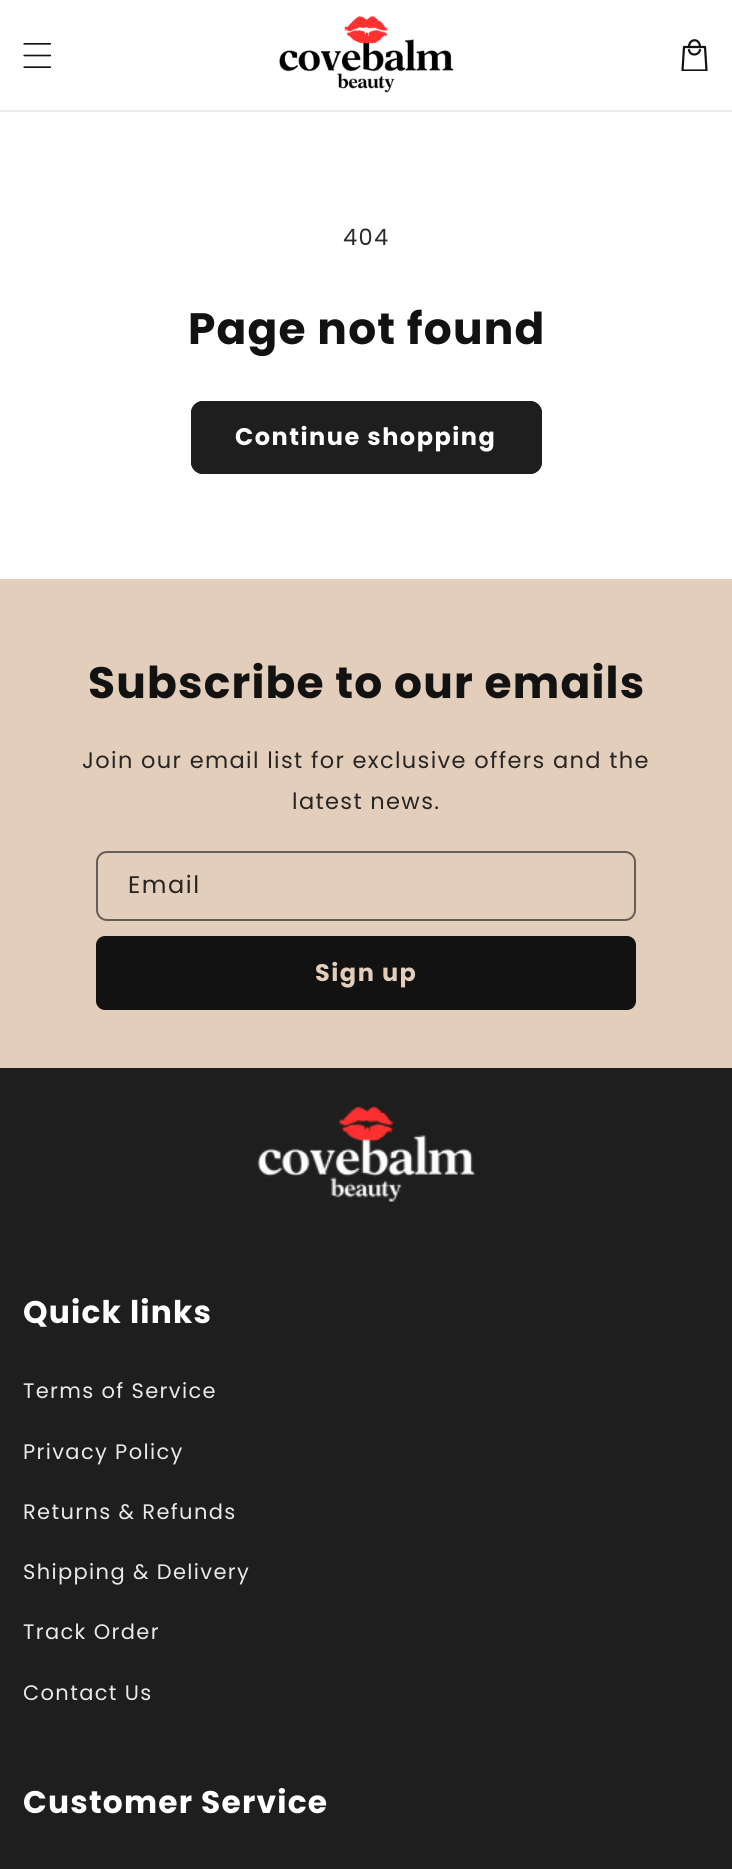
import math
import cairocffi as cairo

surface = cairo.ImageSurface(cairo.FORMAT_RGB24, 732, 1869)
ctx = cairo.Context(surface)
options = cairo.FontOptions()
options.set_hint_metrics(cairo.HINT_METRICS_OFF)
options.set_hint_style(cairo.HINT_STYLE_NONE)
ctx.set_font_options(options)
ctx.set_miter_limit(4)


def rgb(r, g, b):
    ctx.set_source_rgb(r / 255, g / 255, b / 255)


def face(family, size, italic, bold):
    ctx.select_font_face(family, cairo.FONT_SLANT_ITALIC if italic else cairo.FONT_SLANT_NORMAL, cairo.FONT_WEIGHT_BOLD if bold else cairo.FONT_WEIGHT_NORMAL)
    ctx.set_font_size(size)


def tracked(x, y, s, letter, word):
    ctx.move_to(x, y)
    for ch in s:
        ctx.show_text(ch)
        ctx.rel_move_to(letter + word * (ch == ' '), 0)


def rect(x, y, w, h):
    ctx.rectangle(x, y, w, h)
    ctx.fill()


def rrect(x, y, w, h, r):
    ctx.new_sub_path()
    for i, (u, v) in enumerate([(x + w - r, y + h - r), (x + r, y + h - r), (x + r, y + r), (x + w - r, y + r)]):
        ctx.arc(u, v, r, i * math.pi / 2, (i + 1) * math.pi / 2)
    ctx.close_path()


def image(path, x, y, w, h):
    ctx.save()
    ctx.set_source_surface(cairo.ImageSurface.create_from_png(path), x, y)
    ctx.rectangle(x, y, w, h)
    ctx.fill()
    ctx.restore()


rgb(255, 255, 255)
ctx.paint()
rgb(236, 236, 236)
rect(0, 110, 732, 2)
image('image0.png', 23, 43, 29, 25)
image('image1.png', 279, 15, 175, 78)
ctx.save()
ctx.rectangle(678, 39, 33, 32)
ctx.clip()
ctx.new_path()
ctx.move_to(684, 47)
ctx.line_to(705, 47)
ctx.line_to(706.5, 70.5)
ctx.line_to(682.5, 70.5)
ctx.close_path()
rgb(18, 18, 18)
ctx.set_line_width(2.2)
ctx.set_line_cap(cairo.LINE_CAP_ROUND)
ctx.set_line_join(cairo.LINE_JOIN_ROUND)
ctx.stroke()
ctx.restore()
ctx.new_path()
ctx.move_to(689, 47)
ctx.curve_to(689, 38, 700, 38, 700, 47)
ctx.move_to(689, 50)
ctx.curve_to(690, 56, 698.5, 56, 700, 50)
rgb(18, 18, 18)
ctx.set_line_width(2.2)
ctx.set_line_cap(cairo.LINE_CAP_ROUND)
ctx.set_line_join(cairo.LINE_JOIN_ROUND)
ctx.stroke()
face('Poppins', 22.5, 0, 0)
rgb(42, 42, 42)
tracked(343, 245, '404', 1.35, 0)
face('Poppins', 43.9, 0, 1)
rgb(18, 18, 18)
tracked(188, 344, 'Page not found', 1.2, 0)
rgb(30, 30, 30)
rrect(191, 401, 351, 73, 12)
ctx.fill()
rrect(192.5, 402.5, 348, 70, 10.5)
ctx.set_line_width(3)
ctx.set_line_cap(cairo.LINE_CAP_BUTT)
ctx.set_line_join(cairo.LINE_JOIN_MITER)
ctx.stroke()
face('Poppins', 24, 0, 1)
rgb(255, 255, 255)
tracked(235, 445, 'Continue shopping', 1.5, 0)
rgb(227, 205, 187)
rect(0, 579, 732, 489)
face('Poppins', 43.9, 0, 1)
rgb(18, 18, 18)
tracked(88, 698, 'Subscribe to our emails', 1.2, 0)
face('Poppins', 22.5, 0, 0)
rgb(39, 37, 35)
tracked(82, 768, 'Join our email list for exclusive offers and the', 1.35, 0)
tracked(292, 809, 'latest news.', 1.35, 0)
rrect(97, 852, 538, 68, 10)
rgb(102, 93, 86)
ctx.set_line_width(2)
ctx.stroke()
face('Poppins', 24, 0, 0)
rgb(39, 37, 35)
tracked(128, 893, 'Email', 1.5, 0)
rrect(97.5, 937.5, 537, 71, 10.5)
rgb(18, 18, 18)
ctx.set_line_width(3)
ctx.stroke()
rrect(96, 936, 540, 74, 9)
ctx.fill()
face('Poppins', 24, 0, 1)
rgb(227, 205, 187)
tracked(315, 981, 'Sign up', 1.5, 0)
rgb(30, 30, 30)
rect(0, 1068, 732, 801)
image('image2.png', 257, 1106, 219, 96)
face('Poppins', 31.25, 0, 1)
rgb(255, 255, 255)
tracked(23, 1323, 'Quick links', 1.2, 0)
face('Poppins', 21, 0, 0)
rgb(233, 233, 233)
tracked(23, 1398, 'Terms of Service', 1.35, 0)
tracked(23, 1459, 'Privacy Policy', 1.35, 0)
tracked(23, 1519, 'Returns & Refunds', 1.35, 0)
tracked(23, 1579, 'Shipping & Delivery', 1.35, 0)
tracked(23, 1639, 'Track Order', 1.35, 0)
tracked(23, 1700, 'Contact Us', 1.35, 0)
face('Poppins', 31.25, 0, 1)
rgb(255, 255, 255)
tracked(23, 1813, 'Customer Service', 1.2, 0)
surface.write_to_png('render.png')
